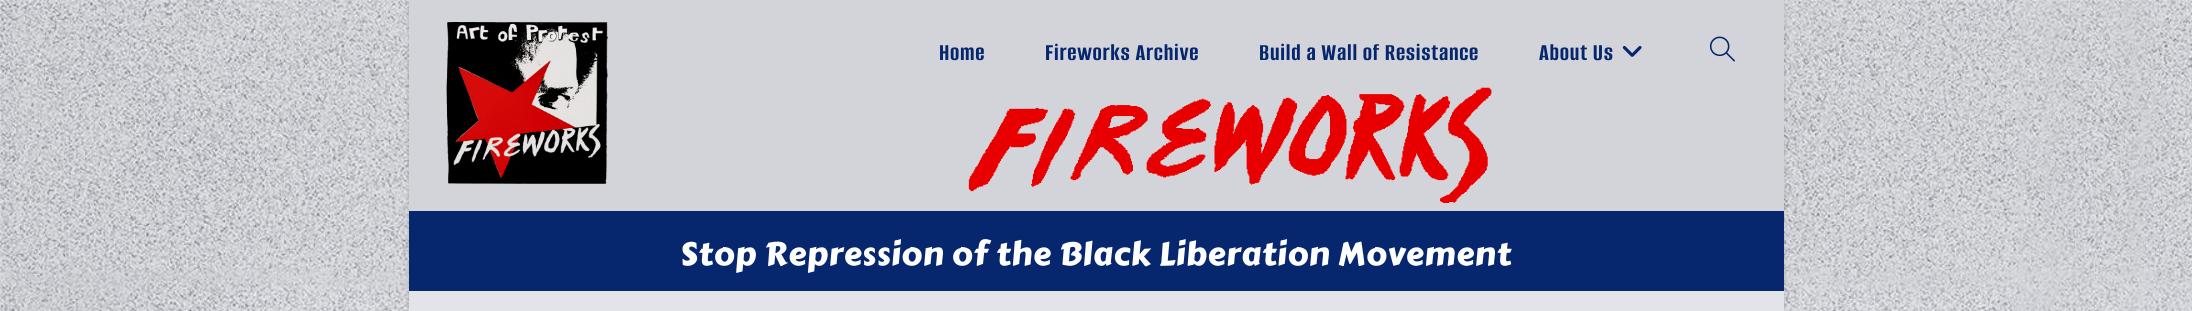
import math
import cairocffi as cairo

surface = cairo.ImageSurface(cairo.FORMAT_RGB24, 2192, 311)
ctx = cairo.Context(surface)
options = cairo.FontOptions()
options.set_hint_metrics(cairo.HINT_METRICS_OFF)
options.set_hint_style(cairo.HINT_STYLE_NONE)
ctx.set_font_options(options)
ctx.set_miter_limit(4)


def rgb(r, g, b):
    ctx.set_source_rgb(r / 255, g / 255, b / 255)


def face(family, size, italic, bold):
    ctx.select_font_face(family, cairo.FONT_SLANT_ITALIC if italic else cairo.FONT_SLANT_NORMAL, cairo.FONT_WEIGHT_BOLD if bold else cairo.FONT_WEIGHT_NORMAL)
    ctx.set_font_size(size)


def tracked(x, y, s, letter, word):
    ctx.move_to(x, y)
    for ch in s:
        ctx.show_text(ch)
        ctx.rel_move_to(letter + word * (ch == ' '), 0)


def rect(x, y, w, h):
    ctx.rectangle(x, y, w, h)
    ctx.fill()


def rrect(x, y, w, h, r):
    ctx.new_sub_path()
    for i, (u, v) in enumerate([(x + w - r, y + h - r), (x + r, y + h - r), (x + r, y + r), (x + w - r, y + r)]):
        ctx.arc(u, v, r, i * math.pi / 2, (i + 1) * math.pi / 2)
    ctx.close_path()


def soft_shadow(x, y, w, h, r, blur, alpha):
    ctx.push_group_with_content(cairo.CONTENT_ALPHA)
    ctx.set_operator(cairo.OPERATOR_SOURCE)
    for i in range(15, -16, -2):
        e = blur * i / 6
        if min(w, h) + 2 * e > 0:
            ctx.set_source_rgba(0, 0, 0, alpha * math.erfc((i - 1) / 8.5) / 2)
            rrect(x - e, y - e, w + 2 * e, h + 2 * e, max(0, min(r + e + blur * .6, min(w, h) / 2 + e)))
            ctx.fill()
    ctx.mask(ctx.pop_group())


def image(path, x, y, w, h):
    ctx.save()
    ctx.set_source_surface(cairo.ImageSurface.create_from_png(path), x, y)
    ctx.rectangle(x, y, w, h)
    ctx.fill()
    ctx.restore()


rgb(255, 255, 255)
ctx.paint()
image('image0.png', 0, 0, 2192, 311)
rgb(0, 0, 0)
soft_shadow(409, 1, 1375, 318, 0, 2.5, 0.15)
rgb(227, 228, 234)
rect(409, 291, 1375, 20)
rgb(211, 212, 217)
rect(409, 0, 1375, 211)
image('image1.png', 968, 87, 524, 116)
image('image2.png', 446, 21, 162, 164)
face('Alumni Sans', 25, 0, 1)
rgb(6, 39, 110)
tracked(939, 60, 'Home', 0.75, 0)
tracked(1045, 60, 'Fireworks Archive', 0.75, 0)
tracked(1259, 60, 'Build a Wall of Resistance', 0.75, 0)
tracked(1539, 60, 'About Us', 0.75, 0)
image('image3.png', 1622, 46, 20, 11)
image('image4.png', 1709, 36, 26, 26)
rect(409, 211, 1375, 80)
face('Carter One', 32.5, 0, 0)
rgb(255, 255, 255)
tracked(680, 265, 'Stop Repression of the Black Liberation Movement', 0.6, 0)
surface.write_to_png('render.png')
